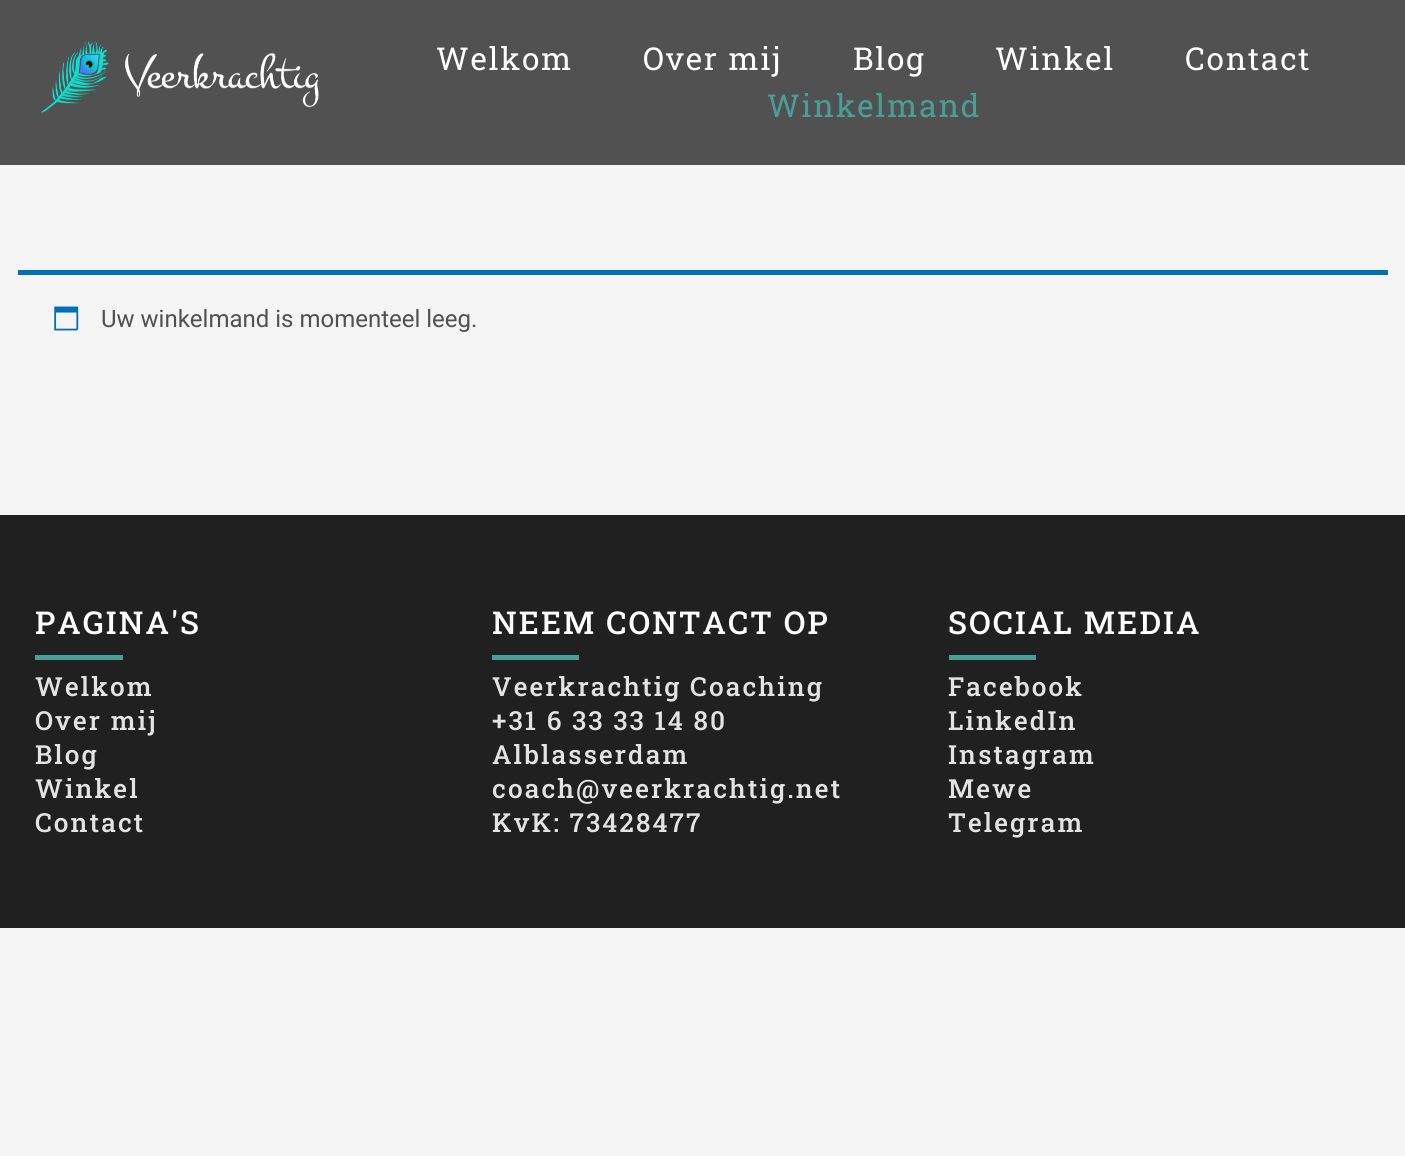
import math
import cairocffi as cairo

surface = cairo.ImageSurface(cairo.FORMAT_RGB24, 1405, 1156)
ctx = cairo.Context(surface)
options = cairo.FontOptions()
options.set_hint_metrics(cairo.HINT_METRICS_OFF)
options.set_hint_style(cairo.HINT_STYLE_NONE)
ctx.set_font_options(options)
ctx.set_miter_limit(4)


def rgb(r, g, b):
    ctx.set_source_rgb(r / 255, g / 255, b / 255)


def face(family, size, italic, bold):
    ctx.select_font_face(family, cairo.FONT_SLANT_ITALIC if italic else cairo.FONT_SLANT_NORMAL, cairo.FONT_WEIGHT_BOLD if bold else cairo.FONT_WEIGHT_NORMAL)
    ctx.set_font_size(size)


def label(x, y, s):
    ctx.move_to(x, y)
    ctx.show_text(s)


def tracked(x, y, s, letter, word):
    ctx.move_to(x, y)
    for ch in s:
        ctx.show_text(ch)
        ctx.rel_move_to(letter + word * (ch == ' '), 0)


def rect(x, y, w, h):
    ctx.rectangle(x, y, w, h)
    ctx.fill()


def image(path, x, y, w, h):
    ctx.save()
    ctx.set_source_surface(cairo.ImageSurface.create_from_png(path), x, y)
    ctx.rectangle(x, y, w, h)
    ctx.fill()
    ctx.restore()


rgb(245, 245, 245)
ctx.paint()
rgb(81, 81, 81)
rect(0, 0, 1405, 165)
image('image0.png', 40, 41, 279, 72)
face('Roboto Slab', 31.5, 0, 0)
rgb(255, 255, 255)
tracked(436, 70, 'Welkom', 1.75, 0)
tracked(643, 70, 'Over mij', 1.75, 0)
tracked(853, 70, 'Blog', 1.75, 0)
tracked(995, 70, 'Winkel', 1.75, 0)
tracked(1185, 70, 'Contact', 1.75, 0)
rgb(73, 158, 151)
tracked(767, 117, 'Winkelmand', 1.75, 0)
rgb(1, 112, 185)
rect(18, 270, 1370, 5)
image('image1.png', 54, 306, 25, 25)
face('Roboto', 24, 0, 0)
rgb(81, 81, 81)
label(101, 327, 'Uw winkelmand is momenteel leeg.')
rgb(32, 32, 32)
rect(0, 515, 1405, 413)
face('Roboto Slab Medium', 31.5, 0, 0)
rgb(255, 255, 255)
tracked(35, 634, 'PAGINA\'S', 2.1, 0)
rgb(73, 158, 151)
rect(35, 655, 88, 5)
face('Roboto Slab Medium', 26.25, 0, 0)
rgb(227, 227, 227)
tracked(35, 696, 'Welkom', 2.1, 0)
tracked(35, 730, 'Over mij', 2.1, 0)
tracked(35, 764, 'Blog', 2.1, 0)
tracked(35, 798, 'Winkel', 2.1, 0)
tracked(35, 832, 'Contact', 2.1, 0)
face('Roboto Slab Medium', 31.5, 0, 0)
rgb(255, 255, 255)
tracked(492, 634, 'NEEM CONTACT OP', 2.1, 0)
rgb(73, 158, 151)
rect(492, 655, 87, 5)
face('Roboto Slab Medium', 26.25, 0, 0)
rgb(227, 227, 227)
tracked(492, 696, 'Veerkrachtig Coaching', 2.1, 0)
tracked(492, 730, '+31 6 33 33 14 80', 2.1, 0)
tracked(492, 764, 'Alblasserdam', 2.1, 0)
tracked(492, 798, 'coach@veerkrachtig.net', 2.1, 0)
tracked(492, 832, 'KvK: 73428477', 2.1, 0)
face('Roboto Slab Medium', 31.5, 0, 0)
rgb(255, 255, 255)
tracked(948, 634, 'SOCIAL MEDIA', 2.1, 0)
rgb(73, 158, 151)
rect(949, 655, 87, 5)
face('Roboto Slab Medium', 26.25, 0, 0)
rgb(227, 227, 227)
tracked(948, 696, 'Facebook', 2.1, 0)
tracked(948, 730, 'LinkedIn', 2.1, 0)
tracked(948, 764, 'Instagram', 2.1, 0)
tracked(948, 798, 'Mewe', 2.1, 0)
tracked(948, 832, 'Telegram', 2.1, 0)
surface.write_to_png('render.png')
